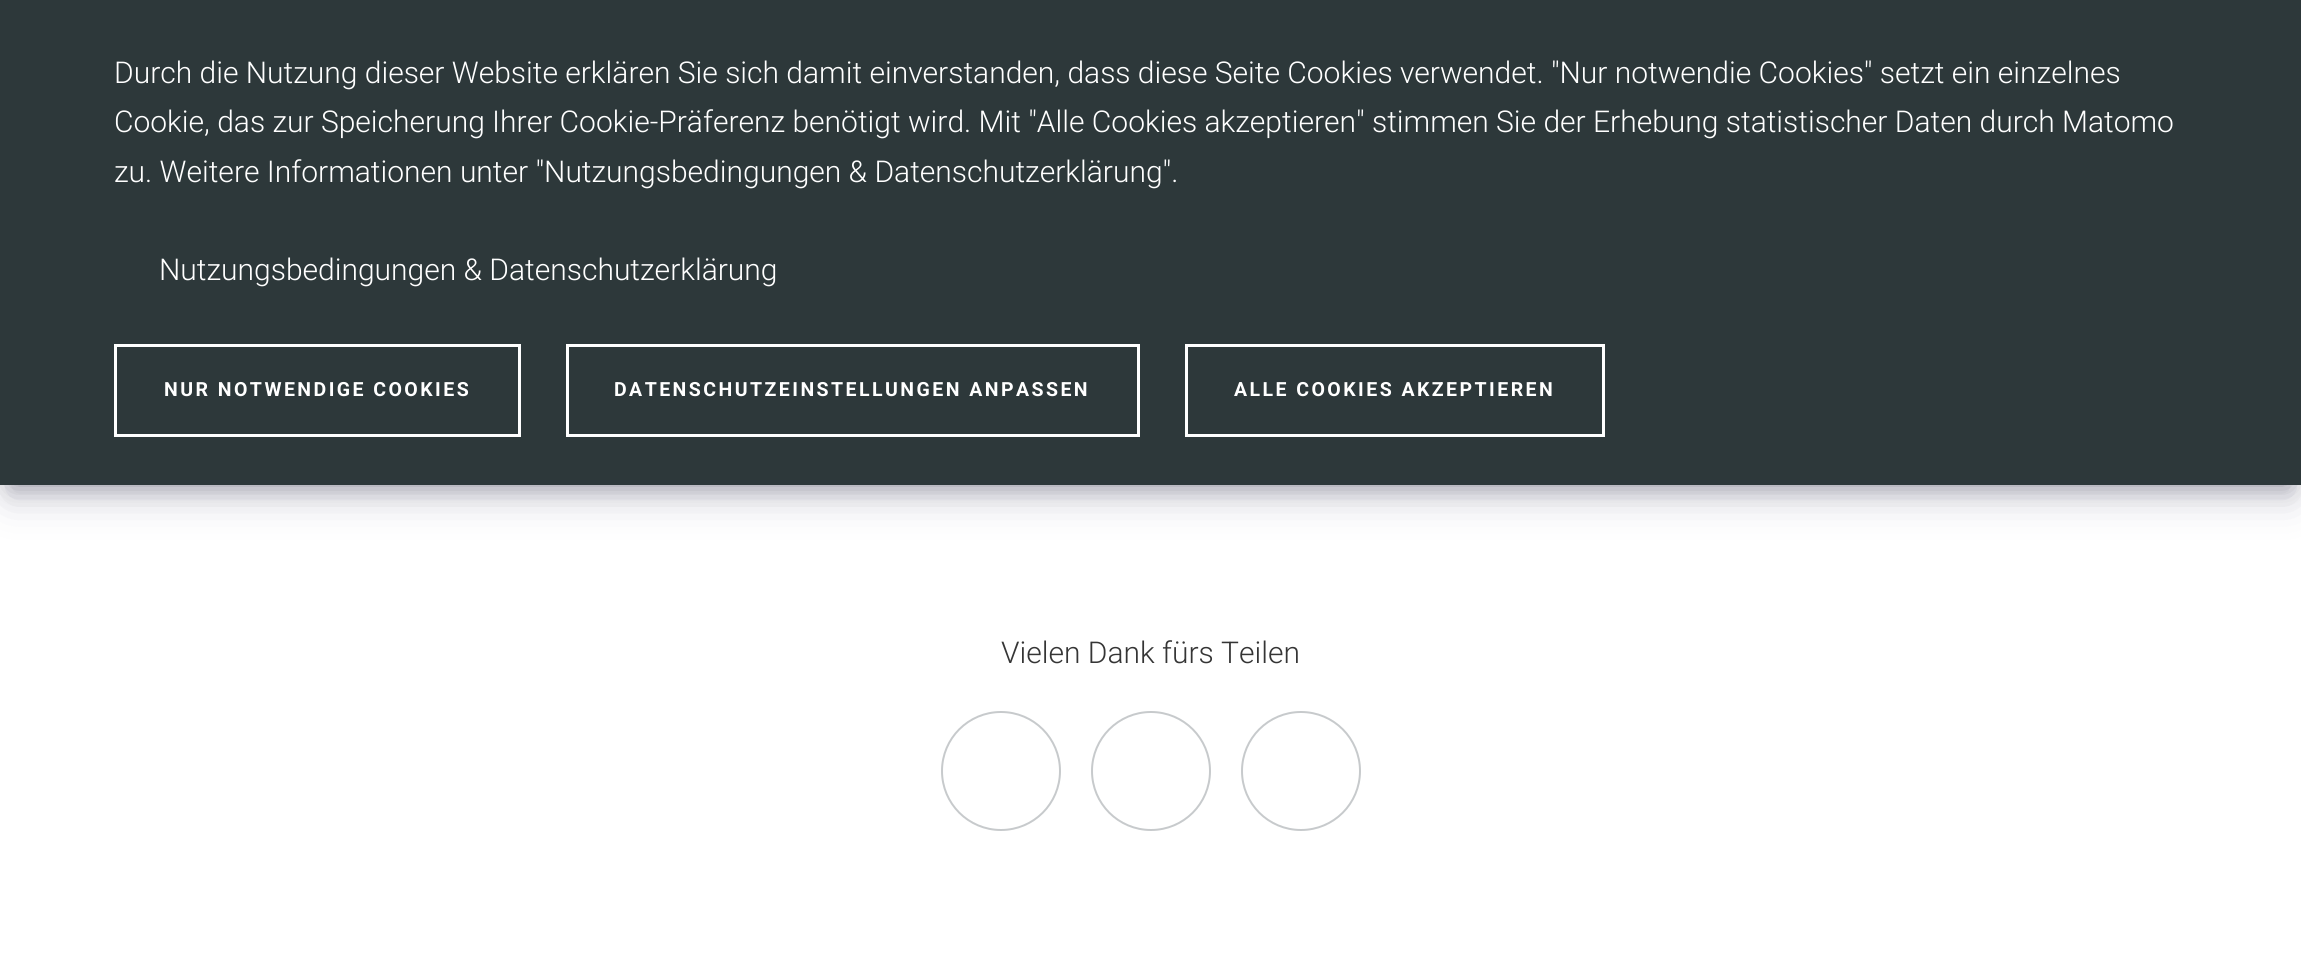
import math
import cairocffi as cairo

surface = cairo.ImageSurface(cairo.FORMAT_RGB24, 2301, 968)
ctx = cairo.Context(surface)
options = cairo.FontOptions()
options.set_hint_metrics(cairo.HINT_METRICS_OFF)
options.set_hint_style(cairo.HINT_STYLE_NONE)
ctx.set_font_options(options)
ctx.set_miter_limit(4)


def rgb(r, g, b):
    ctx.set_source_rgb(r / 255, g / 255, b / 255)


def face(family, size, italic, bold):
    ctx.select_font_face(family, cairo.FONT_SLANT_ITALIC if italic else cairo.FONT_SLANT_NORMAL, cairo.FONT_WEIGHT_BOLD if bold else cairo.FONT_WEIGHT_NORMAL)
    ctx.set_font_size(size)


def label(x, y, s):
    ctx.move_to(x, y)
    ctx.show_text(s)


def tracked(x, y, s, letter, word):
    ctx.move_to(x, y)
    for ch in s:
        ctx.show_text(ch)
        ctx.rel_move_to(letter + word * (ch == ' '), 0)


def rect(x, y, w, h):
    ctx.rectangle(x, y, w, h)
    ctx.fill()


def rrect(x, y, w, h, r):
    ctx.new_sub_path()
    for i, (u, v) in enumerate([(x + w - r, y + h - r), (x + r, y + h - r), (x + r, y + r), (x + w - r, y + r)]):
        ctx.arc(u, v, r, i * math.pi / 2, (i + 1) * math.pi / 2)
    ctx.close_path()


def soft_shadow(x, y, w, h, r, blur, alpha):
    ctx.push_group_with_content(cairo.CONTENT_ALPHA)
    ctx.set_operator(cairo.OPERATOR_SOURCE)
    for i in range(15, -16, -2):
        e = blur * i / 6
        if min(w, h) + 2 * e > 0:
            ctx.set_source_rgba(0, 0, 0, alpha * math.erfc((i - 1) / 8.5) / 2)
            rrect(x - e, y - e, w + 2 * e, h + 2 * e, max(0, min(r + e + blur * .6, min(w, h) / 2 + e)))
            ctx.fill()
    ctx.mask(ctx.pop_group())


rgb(255, 255, 255)
ctx.paint()
rgb(0, 0, 0)
soft_shadow(12, 24, 2277, 461, 0, 12, 0.3)
rgb(50, 50, 93)
soft_shadow(8, 27, 2286, 470, 0, 20, 0.25)
rgb(45, 56, 58)
rect(0, 0, 2301, 485)
face('Roboto Light', 30, 0, 0)
rgb(255, 255, 255)
label(114, 83, 'Durch die Nutzung dieser Website erklären Sie sich damit einverstanden, dass diese Seite Cookies verwendet. "Nur notwendie Cookies" setzt ein einzelnes')
label(114, 132, 'Cookie, das zur Speicherung Ihrer Cookie-Präferenz benötigt wird. Mit "Alle Cookies akzeptieren" stimmen Sie der Erhebung statistischer Daten durch Matomo')
label(114, 182, 'zu. Weitere Informationen unter "Nutzungsbedingungen & Datenschutzerklärung".')
label(159, 280, 'Nutzungsbedingungen & Datenschutzerklärung')
ctx.rectangle(115.5, 345.5, 404, 90)
ctx.set_line_width(3)
ctx.stroke()
face('Roboto', 19.5, 0, 1)
tracked(164, 396, 'NUR NOTWENDIGE COOKIES', 2.45, 0)
ctx.rectangle(567.5, 345.5, 571, 90)
ctx.stroke()
tracked(614, 396, 'DATENSCHUTZEINSTELLUNGEN ANPASSEN', 2.45, 0)
ctx.rectangle(1186.5, 345.5, 417, 90)
ctx.stroke()
tracked(1234, 396, 'ALLE COOKIES AKZEPTIEREN', 2.45, 0)
face('Roboto Light', 30, 0, 0)
rgb(53, 53, 53)
label(1001, 663, 'Vielen Dank fürs Teilen')
ctx.new_path()
ctx.arc(1001, 771, 59, 0, 2 * math.pi)
rgb(199, 202, 204)
ctx.set_line_width(2)
ctx.stroke()
ctx.arc(1151, 771, 59, 0, 2 * math.pi)
ctx.stroke()
ctx.arc(1301, 771, 59, 0, 2 * math.pi)
ctx.stroke()
surface.write_to_png('render.png')
